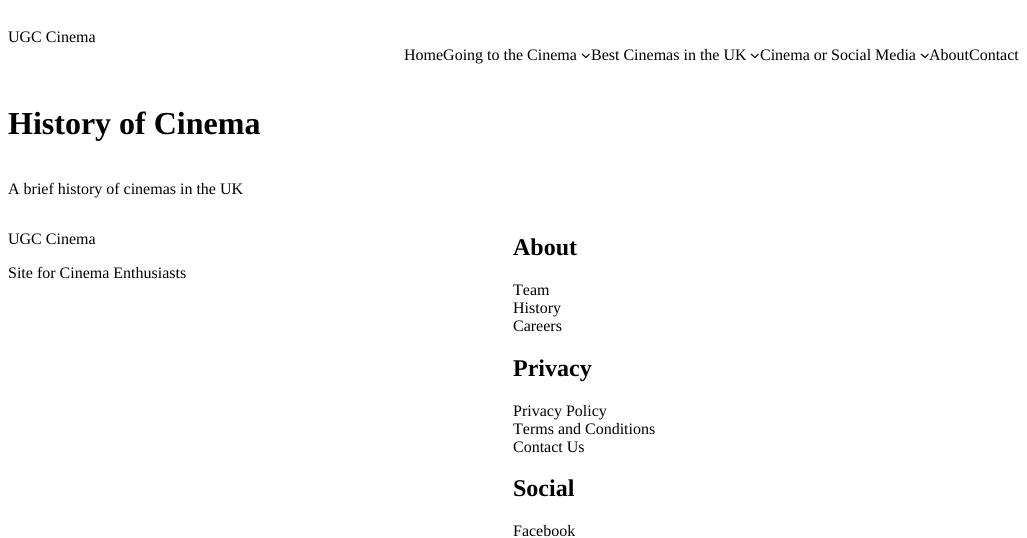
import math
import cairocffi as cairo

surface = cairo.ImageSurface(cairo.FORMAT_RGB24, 1027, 538)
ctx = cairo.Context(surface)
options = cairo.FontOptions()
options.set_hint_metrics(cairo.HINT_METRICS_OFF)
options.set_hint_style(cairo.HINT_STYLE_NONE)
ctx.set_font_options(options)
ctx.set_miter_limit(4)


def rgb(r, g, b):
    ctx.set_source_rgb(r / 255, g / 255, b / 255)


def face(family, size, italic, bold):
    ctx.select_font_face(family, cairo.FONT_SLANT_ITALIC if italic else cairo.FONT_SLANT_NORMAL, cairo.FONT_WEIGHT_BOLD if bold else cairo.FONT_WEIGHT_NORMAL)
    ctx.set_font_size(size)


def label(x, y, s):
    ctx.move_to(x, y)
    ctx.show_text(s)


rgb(255, 255, 255)
ctx.paint()
face('Liberation Serif', 16, 0, 0)
rgb(0, 0, 0)
label(8, 42, 'UGC Cinema')
label(404, 60, 'HomeGoing to the Cinema')
ctx.new_path()
ctx.move_to(582, 54)
ctx.line_to(586, 57.5)
ctx.line_to(589.5, 54)
ctx.set_line_width(1.2)
ctx.stroke()
label(591, 60, 'Best Cinemas in the UK')
ctx.new_path()
ctx.move_to(751, 54)
ctx.line_to(755, 57.5)
ctx.line_to(758.5, 54)
ctx.stroke()
label(760, 60, 'Cinema or Social Media')
ctx.new_path()
ctx.move_to(921, 54)
ctx.line_to(925, 57.5)
ctx.line_to(928.5, 54)
ctx.stroke()
label(929, 60, 'AboutContact')
face('Liberation Serif', 32, 0, 1)
label(8, 134, 'History of Cinema')
face('Liberation Serif', 16, 0, 0)
label(8, 194, 'A brief history of cinemas in the UK')
label(8, 244, 'UGC Cinema')
label(8, 278, 'Site for Cinema Enthusiasts')
face('Liberation Serif', 24, 0, 1)
label(513, 255, 'About')
face('Liberation Serif', 16, 0, 0)
label(513, 295, 'Team')
label(513, 313, 'History')
label(513, 331, 'Careers')
face('Liberation Serif', 24, 0, 1)
label(513, 376, 'Privacy')
face('Liberation Serif', 16, 0, 0)
label(513, 416, 'Privacy Policy')
label(513, 434, 'Terms and Conditions')
label(513, 452, 'Contact Us')
face('Liberation Serif', 24, 0, 1)
label(513, 496, 'Social')
face('Liberation Serif', 16, 0, 0)
label(513, 536, 'Facebook')
surface.write_to_png('render.png')
